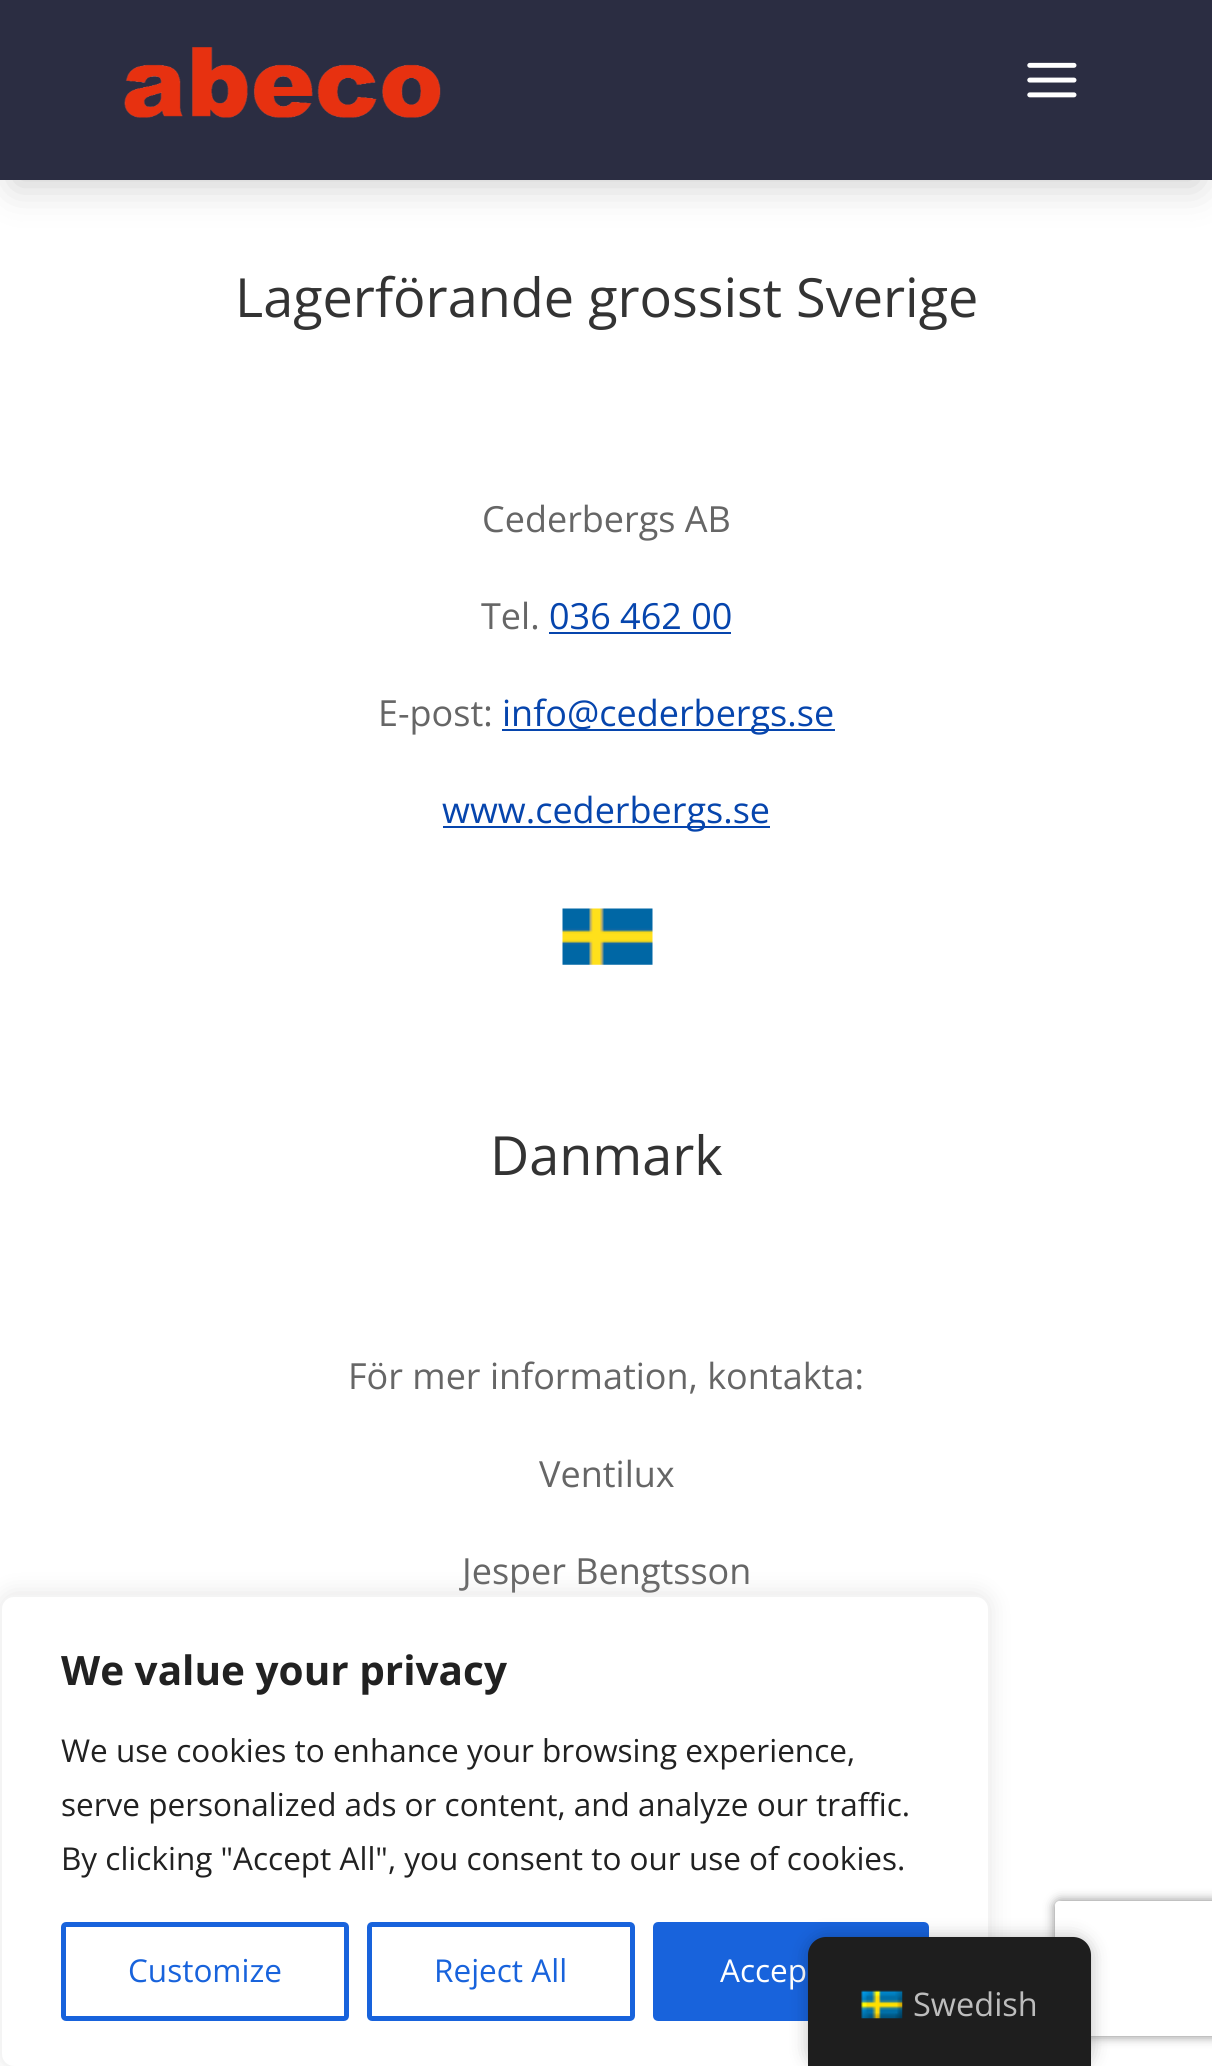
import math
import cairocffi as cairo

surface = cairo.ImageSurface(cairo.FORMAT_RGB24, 1212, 2066)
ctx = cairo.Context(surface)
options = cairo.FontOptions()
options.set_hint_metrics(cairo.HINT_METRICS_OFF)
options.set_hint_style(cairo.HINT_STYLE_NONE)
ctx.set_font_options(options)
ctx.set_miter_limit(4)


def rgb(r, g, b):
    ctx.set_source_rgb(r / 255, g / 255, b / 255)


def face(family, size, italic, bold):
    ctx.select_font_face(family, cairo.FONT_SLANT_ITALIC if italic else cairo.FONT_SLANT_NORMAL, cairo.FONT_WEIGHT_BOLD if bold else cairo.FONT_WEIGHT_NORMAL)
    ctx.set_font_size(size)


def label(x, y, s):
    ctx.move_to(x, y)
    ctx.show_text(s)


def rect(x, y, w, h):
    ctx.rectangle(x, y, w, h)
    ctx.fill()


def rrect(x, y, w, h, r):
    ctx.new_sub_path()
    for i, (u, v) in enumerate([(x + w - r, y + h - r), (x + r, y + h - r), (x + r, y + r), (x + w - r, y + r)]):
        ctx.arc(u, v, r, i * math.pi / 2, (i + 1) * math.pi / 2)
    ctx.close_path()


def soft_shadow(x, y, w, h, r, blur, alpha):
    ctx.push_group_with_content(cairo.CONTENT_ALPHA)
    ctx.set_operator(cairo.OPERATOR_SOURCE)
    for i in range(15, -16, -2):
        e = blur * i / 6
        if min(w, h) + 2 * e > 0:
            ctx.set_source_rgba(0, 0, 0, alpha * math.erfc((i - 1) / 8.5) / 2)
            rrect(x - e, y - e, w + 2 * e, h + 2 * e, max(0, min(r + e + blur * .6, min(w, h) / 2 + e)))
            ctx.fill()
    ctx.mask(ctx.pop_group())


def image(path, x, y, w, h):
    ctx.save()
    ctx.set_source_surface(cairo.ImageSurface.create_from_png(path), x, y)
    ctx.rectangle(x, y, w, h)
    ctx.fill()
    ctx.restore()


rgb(255, 255, 255)
ctx.paint()
rgb(0, 0, 0)
soft_shadow(14, 32, 1185, 153, 0, 20, 0.2)
rgb(43, 45, 66)
rect(0, 0, 1212, 180)
image('image0.png', 124, 47, 317, 71)
image('image1.png', 1027, 62, 50, 36)
face('Open Sans', 54, 0, 0)
rgb(51, 51, 51)
label(235, 317, 'Lagerförande grossist Sverige')
face('Open Sans', 36, 0, 0)
rgb(102, 102, 102)
label(482, 532, 'Cederbergs AB')
label(481, 629, 'Tel.')
rgb(6, 69, 173)
label(549, 629, '036 462 00')
rect(549, 632, 182, 2)
rgb(102, 102, 102)
label(378, 726, 'E-post:')
rgb(6, 69, 173)
rect(502, 729, 333, 2)
label(502, 726, 'info@cederbergs.se')
rect(443, 826, 327, 2)
label(442, 823, 'www.cederbergs.se')
image('image2.png', 562, 908, 91, 57)
face('Open Sans', 54, 0, 0)
rgb(51, 51, 51)
label(490, 1175, 'Danmark')
face('Open Sans', 36, 0, 0)
rgb(102, 102, 102)
label(348, 1389, 'För mer information, kontakta:')
label(539, 1487, 'Ventilux')
label(462, 1584, 'Jesper Bengtsson')
rgb(172, 171, 171)
soft_shadow(0, 1593, 990, 473, 14, 11, 0.3)
rgb(255, 255, 255)
rrect(1, 1596, 988, 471, 13)
ctx.fill_preserve()
rgb(244, 244, 244)
ctx.stroke()
face('Open Sans', 40.5, 0, 1)
rgb(33, 33, 33)
label(61, 1685, 'We value your privacy')
face('Open Sans', 31.5, 0, 0)
label(61, 1762, 'We use cookies to enhance your browsing experience,')
label(61, 1816, 'serve personalized ads or content, and analyze our traffic.')
label(61, 1870, 'By clicking "Accept All", you consent to our use of cookies.')
rrect(63.5, 1924.5, 283, 94, 2.5)
rgb(24, 99, 220)
ctx.set_line_width(5)
ctx.stroke()
label(128, 1982, 'Customize')
rrect(369.5, 1924.5, 263, 94, 2.5)
ctx.stroke()
label(434, 1982, 'Reject All')
rrect(655.5, 1924.5, 271, 94, 2.5)
ctx.fill_preserve()
ctx.stroke()
rgb(255, 255, 255)
label(720, 1982, 'Accep')
rgb(0, 0, 0)
soft_shadow(808, 1937, 283, 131, 18, 9, 0.25)
ctx.save()
ctx.set_fill_rule(cairo.FILL_RULE_EVEN_ODD)
ctx.new_path()
ctx.move_to(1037, 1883)
ctx.line_to(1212, 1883)
ctx.line_to(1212, 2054)
ctx.line_to(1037, 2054)
ctx.close_path()
ctx.move_to(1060, 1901)
ctx.line_to(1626, 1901)
ctx.curve_to(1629, 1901, 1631, 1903, 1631, 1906)
ctx.line_to(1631, 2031)
ctx.curve_to(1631, 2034, 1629, 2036, 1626, 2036)
ctx.line_to(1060, 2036)
ctx.curve_to(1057, 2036, 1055, 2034, 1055, 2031)
ctx.line_to(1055, 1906)
ctx.curve_to(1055, 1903, 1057, 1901, 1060, 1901)
ctx.close_path()
ctx.clip()
rgb(128, 128, 128)
soft_shadow(1055, 1901, 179, 135, 5, 5.5, 1)
ctx.restore()
rgb(30, 30, 30)
ctx.new_path()
ctx.move_to(826, 1937)
ctx.line_to(1073, 1937)
ctx.curve_to(1083, 1937, 1091, 1945, 1091, 1955)
ctx.line_to(1091, 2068)
ctx.line_to(808, 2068)
ctx.line_to(808, 1955)
ctx.curve_to(808, 1945, 816, 1937, 826, 1937)
ctx.close_path()
ctx.fill()
image('image3.png', 861, 1990, 42, 29)
face('Open Sans', 32.5, 0, 0)
rgb(189, 189, 189)
label(913, 2016, 'Swedish')
surface.write_to_png('render.png')
